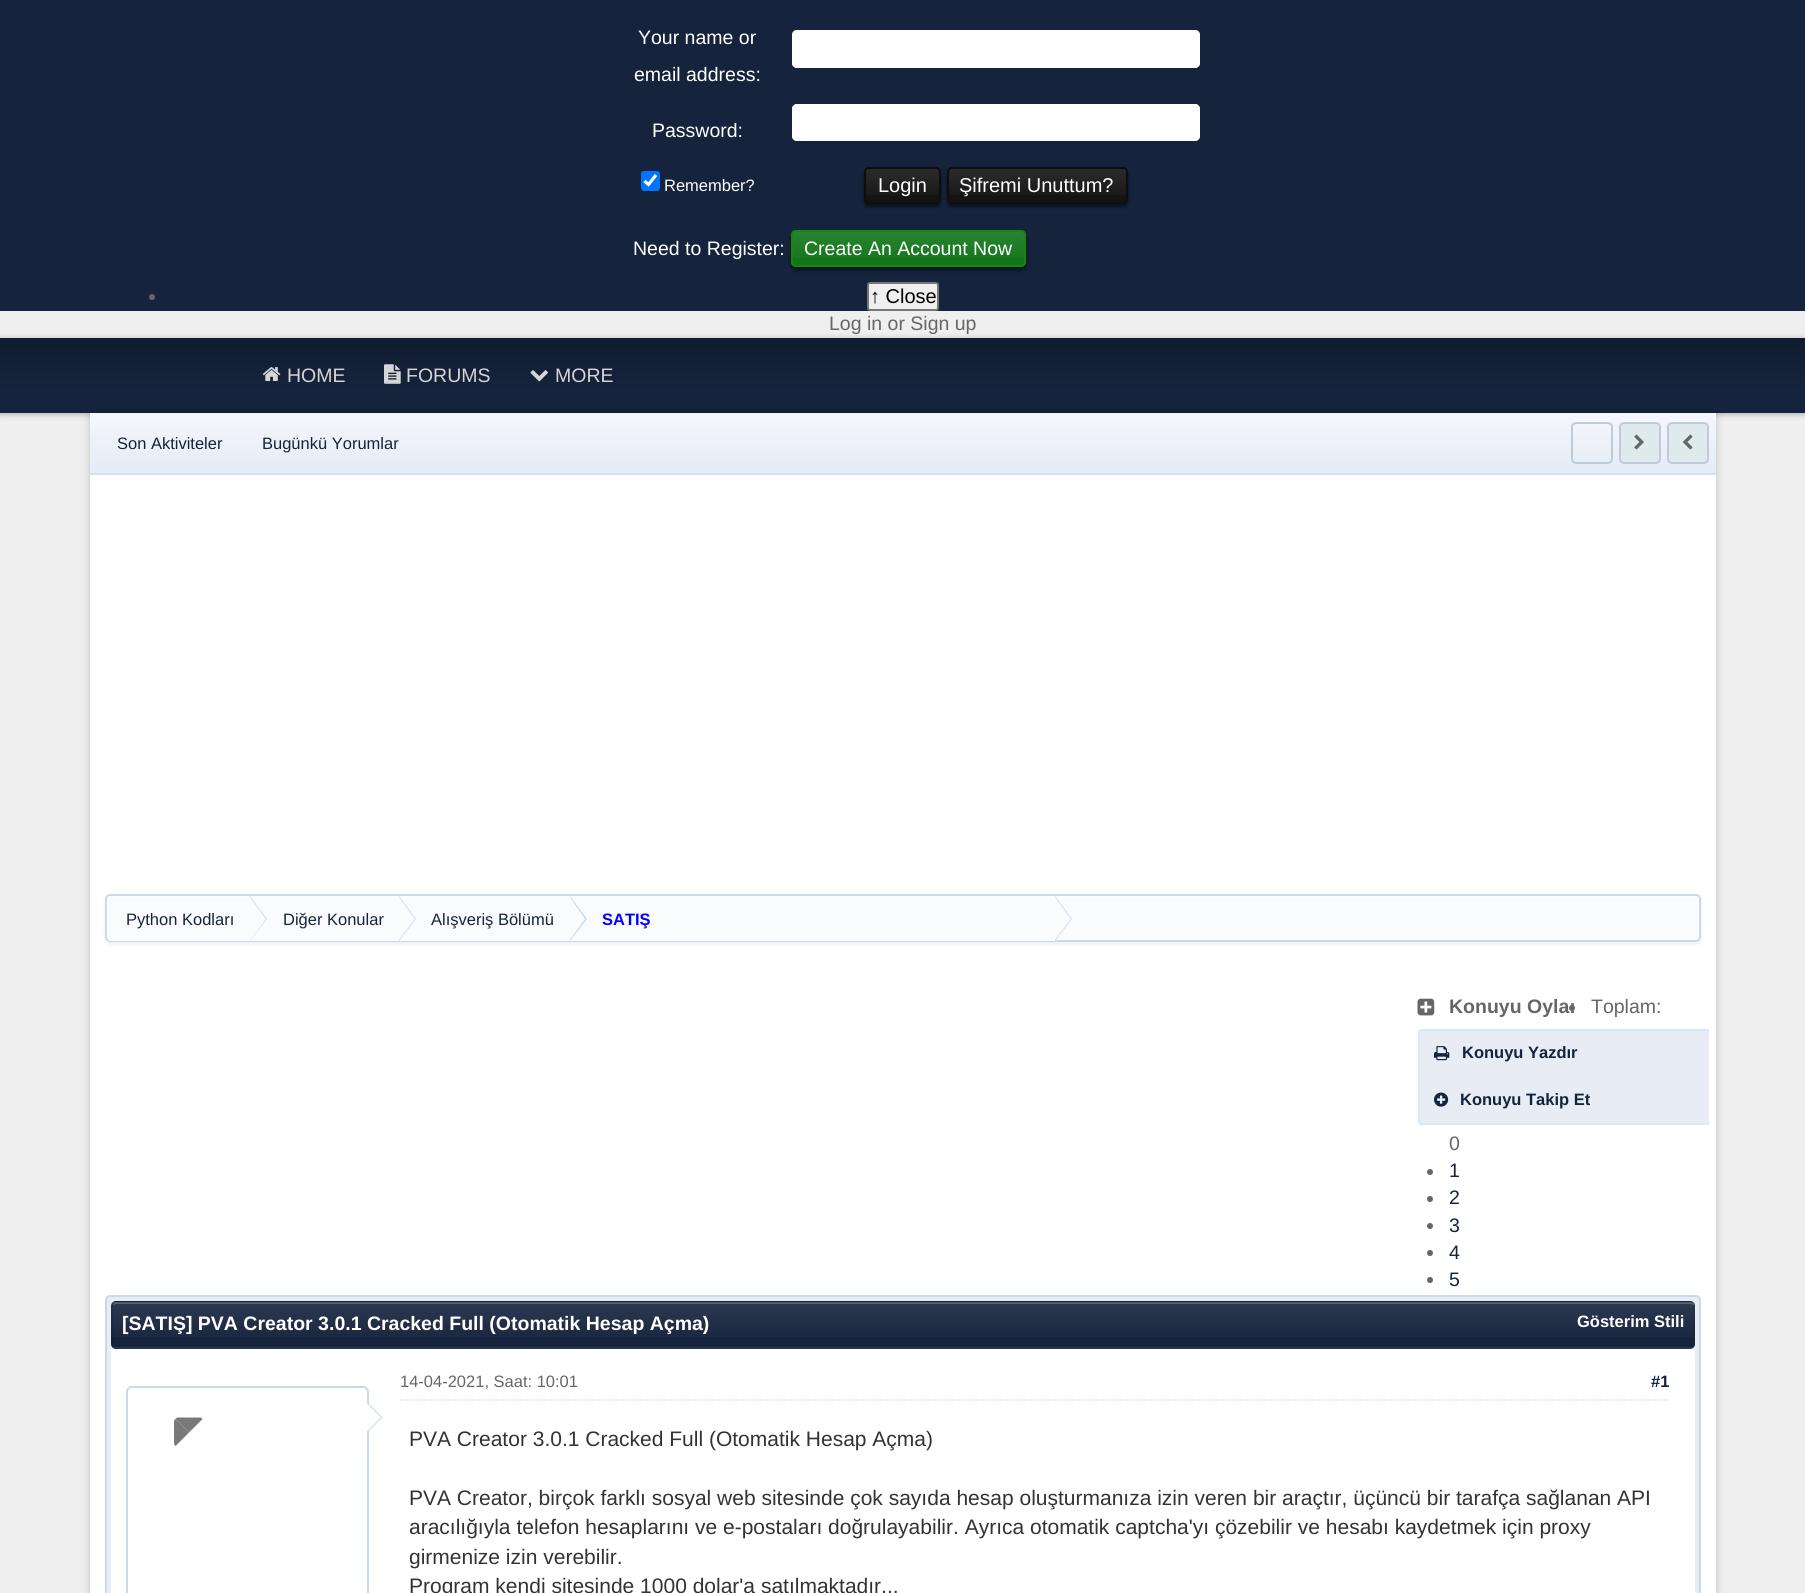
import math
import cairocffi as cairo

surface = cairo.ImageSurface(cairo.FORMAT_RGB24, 1805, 1593)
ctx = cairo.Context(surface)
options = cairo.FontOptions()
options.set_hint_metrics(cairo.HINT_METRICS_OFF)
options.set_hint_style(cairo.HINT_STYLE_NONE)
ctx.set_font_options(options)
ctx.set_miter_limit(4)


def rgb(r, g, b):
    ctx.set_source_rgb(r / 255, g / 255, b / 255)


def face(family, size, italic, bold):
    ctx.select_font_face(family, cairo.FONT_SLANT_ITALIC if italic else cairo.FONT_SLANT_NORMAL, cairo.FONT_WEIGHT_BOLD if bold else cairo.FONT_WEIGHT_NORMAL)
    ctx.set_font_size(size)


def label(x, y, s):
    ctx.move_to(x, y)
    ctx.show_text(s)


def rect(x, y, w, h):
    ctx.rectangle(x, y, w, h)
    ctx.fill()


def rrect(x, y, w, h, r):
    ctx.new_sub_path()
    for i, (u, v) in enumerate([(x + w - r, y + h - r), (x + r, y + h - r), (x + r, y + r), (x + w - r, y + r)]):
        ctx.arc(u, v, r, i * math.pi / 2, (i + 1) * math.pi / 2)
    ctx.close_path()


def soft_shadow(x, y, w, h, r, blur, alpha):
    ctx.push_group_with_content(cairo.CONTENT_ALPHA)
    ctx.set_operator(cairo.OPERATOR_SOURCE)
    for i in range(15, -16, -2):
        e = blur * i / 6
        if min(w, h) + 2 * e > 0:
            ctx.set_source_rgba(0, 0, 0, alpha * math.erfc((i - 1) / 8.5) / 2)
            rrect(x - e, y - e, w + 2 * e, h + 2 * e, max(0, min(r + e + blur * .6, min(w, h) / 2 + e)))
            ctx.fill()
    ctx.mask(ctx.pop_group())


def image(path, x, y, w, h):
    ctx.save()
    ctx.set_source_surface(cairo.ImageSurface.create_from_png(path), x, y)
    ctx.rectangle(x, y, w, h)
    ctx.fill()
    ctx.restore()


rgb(239, 239, 239)
ctx.paint()
rgb(21, 35, 60)
rect(0, 0, 1805, 311)
face('Liberation Sans', 19.5, 0, 0)
rgb(255, 255, 255)
label(638, 44, 'Your name or')
label(634, 81, 'email address:')
rrect(792, 30, 408, 38, 5)
ctx.fill()
rrect(793, 31, 406, 36, 4)
ctx.set_source_rgba(1, 1, 1, 0.78)
ctx.stroke()
rgb(255, 255, 255)
label(652, 137, 'Password:')
rrect(792, 104, 408, 37, 5)
ctx.fill()
rrect(793, 105, 406, 35, 4)
ctx.set_source_rgba(1, 1, 1, 0.78)
ctx.stroke()
rgb(0, 117, 255)
rrect(641, 171, 19, 20, 3)
ctx.fill()
ctx.new_path()
ctx.move_to(644.5, 181)
ctx.line_to(648.5, 184.5)
ctx.line_to(656, 175)
rgb(255, 255, 255)
ctx.set_line_width(3.1)
ctx.stroke()
face('Liberation Sans', 16.5, 0, 0)
label(664, 191, 'Remember?')
rgb(0, 0, 0)
soft_shadow(864, 170, 77, 37, 5, 2, 0.56)
rgb(20, 20, 20)
rrect(864, 167, 77, 37, 5)
ctx.fill()
ctx.save()
rrect(864, 167, 77, 37, 5)
ctx.clip()
gradient = cairo.LinearGradient(902, 168, 902, 203)
gradient.add_color_stop_rgba(0, 1, 1, 1, 0.1)
gradient.add_color_stop_rgba(1, 1, 1, 1, 0)
ctx.set_source(gradient)
rect(864, 168, 77, 27)
ctx.restore()
rrect(865, 168, 75, 35, 4)
rgb(14, 14, 14)
ctx.set_line_width(2)
ctx.stroke()
face('Liberation Sans', 20, 0, 0)
rgb(255, 255, 255)
label(878, 192, 'Login')
rgb(0, 0, 0)
soft_shadow(947, 170, 181, 37, 5, 2, 0.56)
rgb(20, 20, 20)
rrect(947, 167, 181, 37, 5)
ctx.fill()
ctx.save()
rrect(947, 167, 181, 37, 5)
ctx.clip()
gradient = cairo.LinearGradient(1037, 168, 1037, 203)
gradient.add_color_stop_rgba(0, 1, 1, 1, 0.1)
gradient.add_color_stop_rgba(1, 1, 1, 1, 0)
ctx.set_source(gradient)
rect(947, 168, 181, 27)
ctx.restore()
rrect(948, 168, 179, 35, 4)
rgb(14, 14, 14)
ctx.stroke()
rgb(255, 255, 255)
label(959, 192, 'Şifremi Unuttum?')
face('Liberation Sans', 19.5, 0, 0)
label(633, 255, 'Need to Register:')
rgb(0, 0, 0)
soft_shadow(791, 233, 235, 37, 5, 2, 0.56)
rgb(18, 117, 26)
rrect(791, 230, 235, 37, 5)
ctx.fill()
ctx.save()
rrect(791, 230, 235, 37, 5)
ctx.clip()
gradient = cairo.LinearGradient(908, 231, 908, 266)
gradient.add_color_stop_rgba(0, 1, 1, 1, 0.1)
gradient.add_color_stop_rgba(1, 1, 1, 1, 0)
ctx.set_source(gradient)
rect(791, 231, 235, 27)
ctx.restore()
rrect(792, 231, 233, 35, 4)
rgb(17, 136, 17)
ctx.stroke()
rgb(255, 255, 255)
label(804, 255, 'Create An Account Now')
rgb(102, 102, 102)
ctx.new_path()
ctx.arc(152, 297, 3, 0, 2 * math.pi)
ctx.fill()
rgb(239, 239, 239)
rrect(868, 283, 70, 27, 2)
ctx.fill_preserve()
rgb(118, 118, 118)
ctx.stroke()
face('Liberation Sans', 20, 0, 0)
rgb(0, 0, 0)
label(870, 303, '↑ Close')
rgb(0, 0, 0)
soft_shadow(0, 339, 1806, 75, 0, 3, 0.3)
face('Liberation Sans', 19.5, 0, 0)
rgb(102, 102, 102)
label(829, 330, 'Log in or Sign up')
ctx.set_source_rgba(1, 1, 1, 0.08)
rect(0, 337, 1805, 1)
gradient = cairo.LinearGradient(903, 337, 903, 413)
gradient.add_color_stop_rgba(0, 0.067, 0.11, 0.188, 1)
gradient.add_color_stop_rgba(0.7, 0.082, 0.137, 0.235, 1)
ctx.set_source(gradient)
rect(0, 338, 1805, 75)
image('image0.png', 262, 367, 19, 14)
rgb(213, 213, 213)
label(287, 382, 'HOME')
image('image1.png', 384, 364, 17, 20)
label(406, 382, 'FORUMS')
image('image2.png', 530, 370, 18, 12)
label(555, 382, 'MORE')
rgb(0, 0, 0)
soft_shadow(90, 413, 1626, 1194, 0, 4.5, 0.2)
rgb(255, 255, 255)
rect(90, 475, 1626, 1118)
gradient = cairo.LinearGradient(903, 412, 903, 473)
gradient.add_color_stop_rgba(0, 0.961, 0.969, 0.984, 1)
gradient.add_color_stop_rgba(1, 0.898, 0.925, 0.961, 1)
ctx.set_source(gradient)
rect(90, 413, 1626, 60)
rgb(214, 224, 238)
rect(90, 473, 1626, 2)
face('Liberation Sans', 16.5, 0, 0)
rgb(21, 35, 60)
label(117, 449, 'Son Aktiviteler')
label(262, 449, 'Bugünkü Yorumlar')
rrect(1572, 423, 40, 40, 4)
rgb(191, 203, 218)
ctx.stroke()
rgb(223, 234, 236)
rrect(1620, 423, 40, 40, 4)
ctx.fill_preserve()
rgb(191, 203, 218)
ctx.stroke()
image('image3.png', 1634, 434, 10, 16)
rgb(223, 234, 236)
rrect(1668, 423, 40, 40, 4)
ctx.fill_preserve()
rgb(191, 203, 218)
ctx.stroke()
image('image4.png', 1683, 434, 10, 16)
rgb(0, 0, 0)
soft_shadow(105, 896, 1596, 48, 5, 2, 0.07)
rgb(250, 251, 252)
rrect(105, 894, 1596, 48, 5)
ctx.fill()
rgb(254, 254, 254)
ctx.new_path()
ctx.move_to(110, 897)
ctx.line_to(1696, 897)
ctx.curve_to(1698, 897, 1700, 898, 1700, 900)
ctx.curve_to(1700, 898, 1699, 896, 1697, 896)
ctx.line_to(110, 896)
ctx.line_to(107, 898)
ctx.close_path()
ctx.fill()
rrect(106, 895, 1594, 46, 4)
rgb(201, 218, 235)
ctx.stroke()
ctx.save()
rrect(107, 896, 1593, 45, 3)
ctx.clip()
rgb(250, 251, 252)
ctx.new_path()
ctx.move_to(113, 896)
ctx.line_to(249, 896)
ctx.line_to(249, 942)
ctx.line_to(113, 942)
ctx.curve_to(109.5, 942, 107, 939.5, 107, 936)
ctx.line_to(107, 902)
ctx.curve_to(107, 898.5, 109.5, 896, 113, 896)
ctx.close_path()
ctx.fill()
ctx.restore()
ctx.set_source_rgba(1, 1, 1, 0.75)
ctx.new_path()
ctx.move_to(112, 897)
ctx.curve_to(110, 897, 108, 898, 107, 900)
ctx.curve_to(107, 899, 109, 896, 110, 896)
ctx.line_to(249, 896)
ctx.line_to(249, 897)
ctx.close_path()
ctx.fill()
rgb(21, 35, 60)
label(126, 925, 'Python Kodları')
rgb(250, 251, 252)
rect(250, 940, 805, 1)
rgb(254, 254, 254)
rect(249, 897, 806, 1)
rgb(201, 218, 235)
ctx.new_path()
ctx.move_to(250, 941)
ctx.line_to(250, 896)
ctx.line_to(267, 919)
ctx.close_path()
ctx.fill()
rgb(250, 251, 252)
ctx.new_path()
ctx.move_to(249, 896)
ctx.line_to(266, 919)
ctx.line_to(250, 941)
ctx.line_to(248, 941)
ctx.line_to(248, 896)
ctx.close_path()
ctx.fill()
rgb(21, 35, 60)
label(283, 925, 'Diğer Konular')
rgb(201, 218, 235)
ctx.new_path()
ctx.move_to(399, 941)
ctx.line_to(399, 896)
ctx.line_to(416, 919)
ctx.close_path()
ctx.fill()
rgb(250, 251, 252)
ctx.new_path()
ctx.move_to(398, 896)
ctx.line_to(415, 919)
ctx.line_to(398, 941)
ctx.line_to(397, 941)
ctx.line_to(397, 896)
ctx.close_path()
ctx.fill()
rgb(21, 35, 60)
label(431, 925, 'Alışveriş Bölümü')
rgb(201, 218, 235)
ctx.new_path()
ctx.move_to(570, 941)
ctx.line_to(570, 896)
ctx.line_to(587, 919)
ctx.close_path()
ctx.fill()
rgb(250, 251, 252)
ctx.new_path()
ctx.move_to(569, 896)
ctx.line_to(585, 919)
ctx.line_to(569, 941)
ctx.line_to(568, 941)
ctx.line_to(568, 896)
ctx.close_path()
ctx.fill()
face('Liberation Sans', 16.5, 0, 1)
rgb(0, 0, 255)
label(602, 925, 'SATIŞ')
rgb(201, 218, 235)
ctx.new_path()
ctx.move_to(1055, 941)
ctx.line_to(1055, 896)
ctx.line_to(1072, 919)
ctx.close_path()
ctx.fill()
rgb(250, 251, 252)
ctx.new_path()
ctx.move_to(1054, 896)
ctx.line_to(1071, 919)
ctx.line_to(1054, 941)
ctx.line_to(1053, 941)
ctx.line_to(1053, 896)
ctx.close_path()
ctx.fill()
rgb(102, 102, 102)
ctx.arc(1572, 1008, 3, 0, 2 * math.pi)
ctx.fill()
face('Liberation Sans', 19.5, 0, 0)
label(1591, 1013, 'Toplam:')
label(1449, 1150, '0')
ctx.new_path()
ctx.arc(1430, 1172, 3, 0, 2 * math.pi)
ctx.fill()
rgb(21, 35, 60)
label(1449, 1177, '1')
rgb(102, 102, 102)
ctx.new_path()
ctx.arc(1430, 1199, 3, 0, 2 * math.pi)
ctx.fill()
rgb(21, 35, 60)
label(1449, 1204, '2')
rgb(102, 102, 102)
ctx.new_path()
ctx.arc(1430, 1226, 3, 0, 2 * math.pi)
ctx.fill()
rgb(21, 35, 60)
label(1449, 1232, '3')
rgb(102, 102, 102)
ctx.new_path()
ctx.arc(1430, 1253, 3, 0, 2 * math.pi)
ctx.fill()
rgb(21, 35, 60)
label(1449, 1259, '4')
rgb(102, 102, 102)
ctx.new_path()
ctx.arc(1430, 1280, 3, 0, 2 * math.pi)
ctx.fill()
rgb(21, 35, 60)
label(1449, 1286, '5')
face('Liberation Sans', 19.5, 0, 1)
rgb(102, 102, 102)
label(1449, 1013, 'Konuyu Oyla:')
image('image5.png', 1417, 998, 18, 18)
rgb(232, 237, 245)
ctx.new_path()
ctx.move_to(1421, 1029)
ctx.line_to(1709, 1029)
ctx.line_to(1709, 1125)
ctx.line_to(1421, 1125)
ctx.curve_to(1419.5, 1125, 1418, 1123.5, 1418, 1122)
ctx.line_to(1418, 1032)
ctx.curve_to(1418, 1030.5, 1419.5, 1029, 1421, 1029)
ctx.close_path()
ctx.fill()
ctx.save()
ctx.rectangle(98, 474, 1611, 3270)
ctx.clip()
rrect(1419, 1030, 301, 94, 2)
rgb(214, 236, 244)
ctx.stroke()
ctx.restore()
image('image6.png', 1434, 1046, 16, 15)
face('Liberation Sans', 16.5, 0, 1)
rgb(21, 35, 60)
label(1462, 1058, 'Konuyu Yazdır')
image('image7.png', 1434, 1092, 15, 15)
label(1460, 1105, 'Konuyu Takip Et')
rgb(232, 237, 245)
rrect(106, 1296, 1594, 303, 4)
ctx.fill_preserve()
rgb(201, 218, 235)
ctx.stroke()
rgb(21, 35, 60)
rrect(111, 1301, 1584, 48, 5)
ctx.fill()
ctx.save()
rrect(111, 1301, 1584, 48, 5)
ctx.clip()
gradient = cairo.LinearGradient(903, 1302, 903, 1347)
gradient.add_color_stop_rgba(0, 1, 1, 1, 0.1)
gradient.add_color_stop_rgba(1, 1, 1, 1, 0)
ctx.set_source(gradient)
rect(111, 1302, 1584, 35)
gradient = cairo.LinearGradient(903, 1347, 903, 1392)
gradient.add_color_stop_rgba(0, 1, 1, 1, 0.1)
gradient.add_color_stop_rgba(1, 1, 1, 1, 0)
ctx.set_source(gradient)
rect(111, 1347, 1584, 2)
ctx.restore()
rgb(86, 96, 114)
ctx.new_path()
ctx.move_to(116, 1304)
ctx.line_to(1690, 1304)
ctx.curve_to(1692, 1304, 1694, 1305, 1694, 1306)
ctx.line_to(1694, 1305)
ctx.curve_to(1694, 1303, 1693, 1302, 1691, 1302)
ctx.line_to(116, 1302)
ctx.curve_to(114, 1302, 113, 1303, 113, 1305)
ctx.close_path()
ctx.fill()
rrect(112, 1302, 1582, 46, 4)
ctx.set_source_rgba(0, 0, 0, 0.08)
ctx.stroke()
face('Liberation Sans', 19.5, 0, 1)
rgb(255, 255, 255)
label(122, 1330, '[SATIŞ] PVA Creator 3.0.1 Cracked Full (Otomatik Hesap Açma)')
face('Liberation Sans', 16.5, 0, 1)
label(1577, 1327, 'Gösterim Stili')
rect(111, 1349, 1584, 244)
rrect(127, 1387, 241, 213, 5)
rgb(201, 218, 235)
ctx.stroke()
rgb(121, 121, 121)
ctx.new_path()
ctx.move_to(178.5, 1417.5)
ctx.curve_to(177, 1417.5, 176, 1418, 175.5, 1419)
ctx.line_to(189, 1432.5)
ctx.line_to(202.5, 1419)
ctx.curve_to(202, 1418, 201, 1417.5, 199.5, 1417.5)
ctx.close_path()
ctx.fill()
ctx.new_path()
ctx.move_to(189, 1432.5)
ctx.line_to(175.5, 1419)
ctx.curve_to(174.5, 1419.5, 174, 1421, 174, 1422)
ctx.line_to(174, 1443)
ctx.curve_to(174, 1444, 174.5, 1445.5, 175.5, 1446)
ctx.close_path()
ctx.fill()
rgb(201, 218, 235)
ctx.new_path()
ctx.move_to(367.5, 1432.5)
ctx.line_to(367.5, 1402.5)
ctx.line_to(382.5, 1417.5)
ctx.close_path()
ctx.fill()
rgb(255, 255, 255)
ctx.new_path()
ctx.move_to(366, 1432.5)
ctx.line_to(366, 1402.5)
ctx.line_to(381, 1417.5)
ctx.close_path()
ctx.fill()
ctx.new_path()
ctx.move_to(400.5, 1400)
ctx.line_to(1669.5, 1400)
rgb(221, 221, 221)
ctx.set_line_width(1.5)
ctx.set_dash([1.5, 1.5])
ctx.stroke()
face('Liberation Sans', 16.5, 0, 0)
rgb(102, 102, 102)
label(400, 1387, '14-04-2021, Saat: 10:01')
face('Liberation Sans', 16.5, 0, 1)
rgb(21, 35, 60)
label(1651, 1387, '#1')
face('Liberation Sans', 21, 0, 0)
rgb(51, 51, 51)
label(409, 1446, 'PVA Creator 3.0.1 Cracked Full (Otomatik Hesap Açma)')
label(409, 1505, 'PVA Creator, birçok farklı sosyal web sitesinde çok sayıda hesap oluşturmanıza izin veren bir araçtır, üçüncü bir tarafça sağlanan API')
label(409, 1534, 'aracılığıyla telefon hesaplarını ve e-postaları doğrulayabilir. Ayrıca otomatik captcha\'yı çözebilir ve hesabı kaydetmek için proxy')
label(409, 1564, 'girmenize izin verebilir.')
label(409, 1593, 'Program kendi sitesinde 1000 dolar\'a satılmaktadır...')
surface.write_to_png('render.png')
